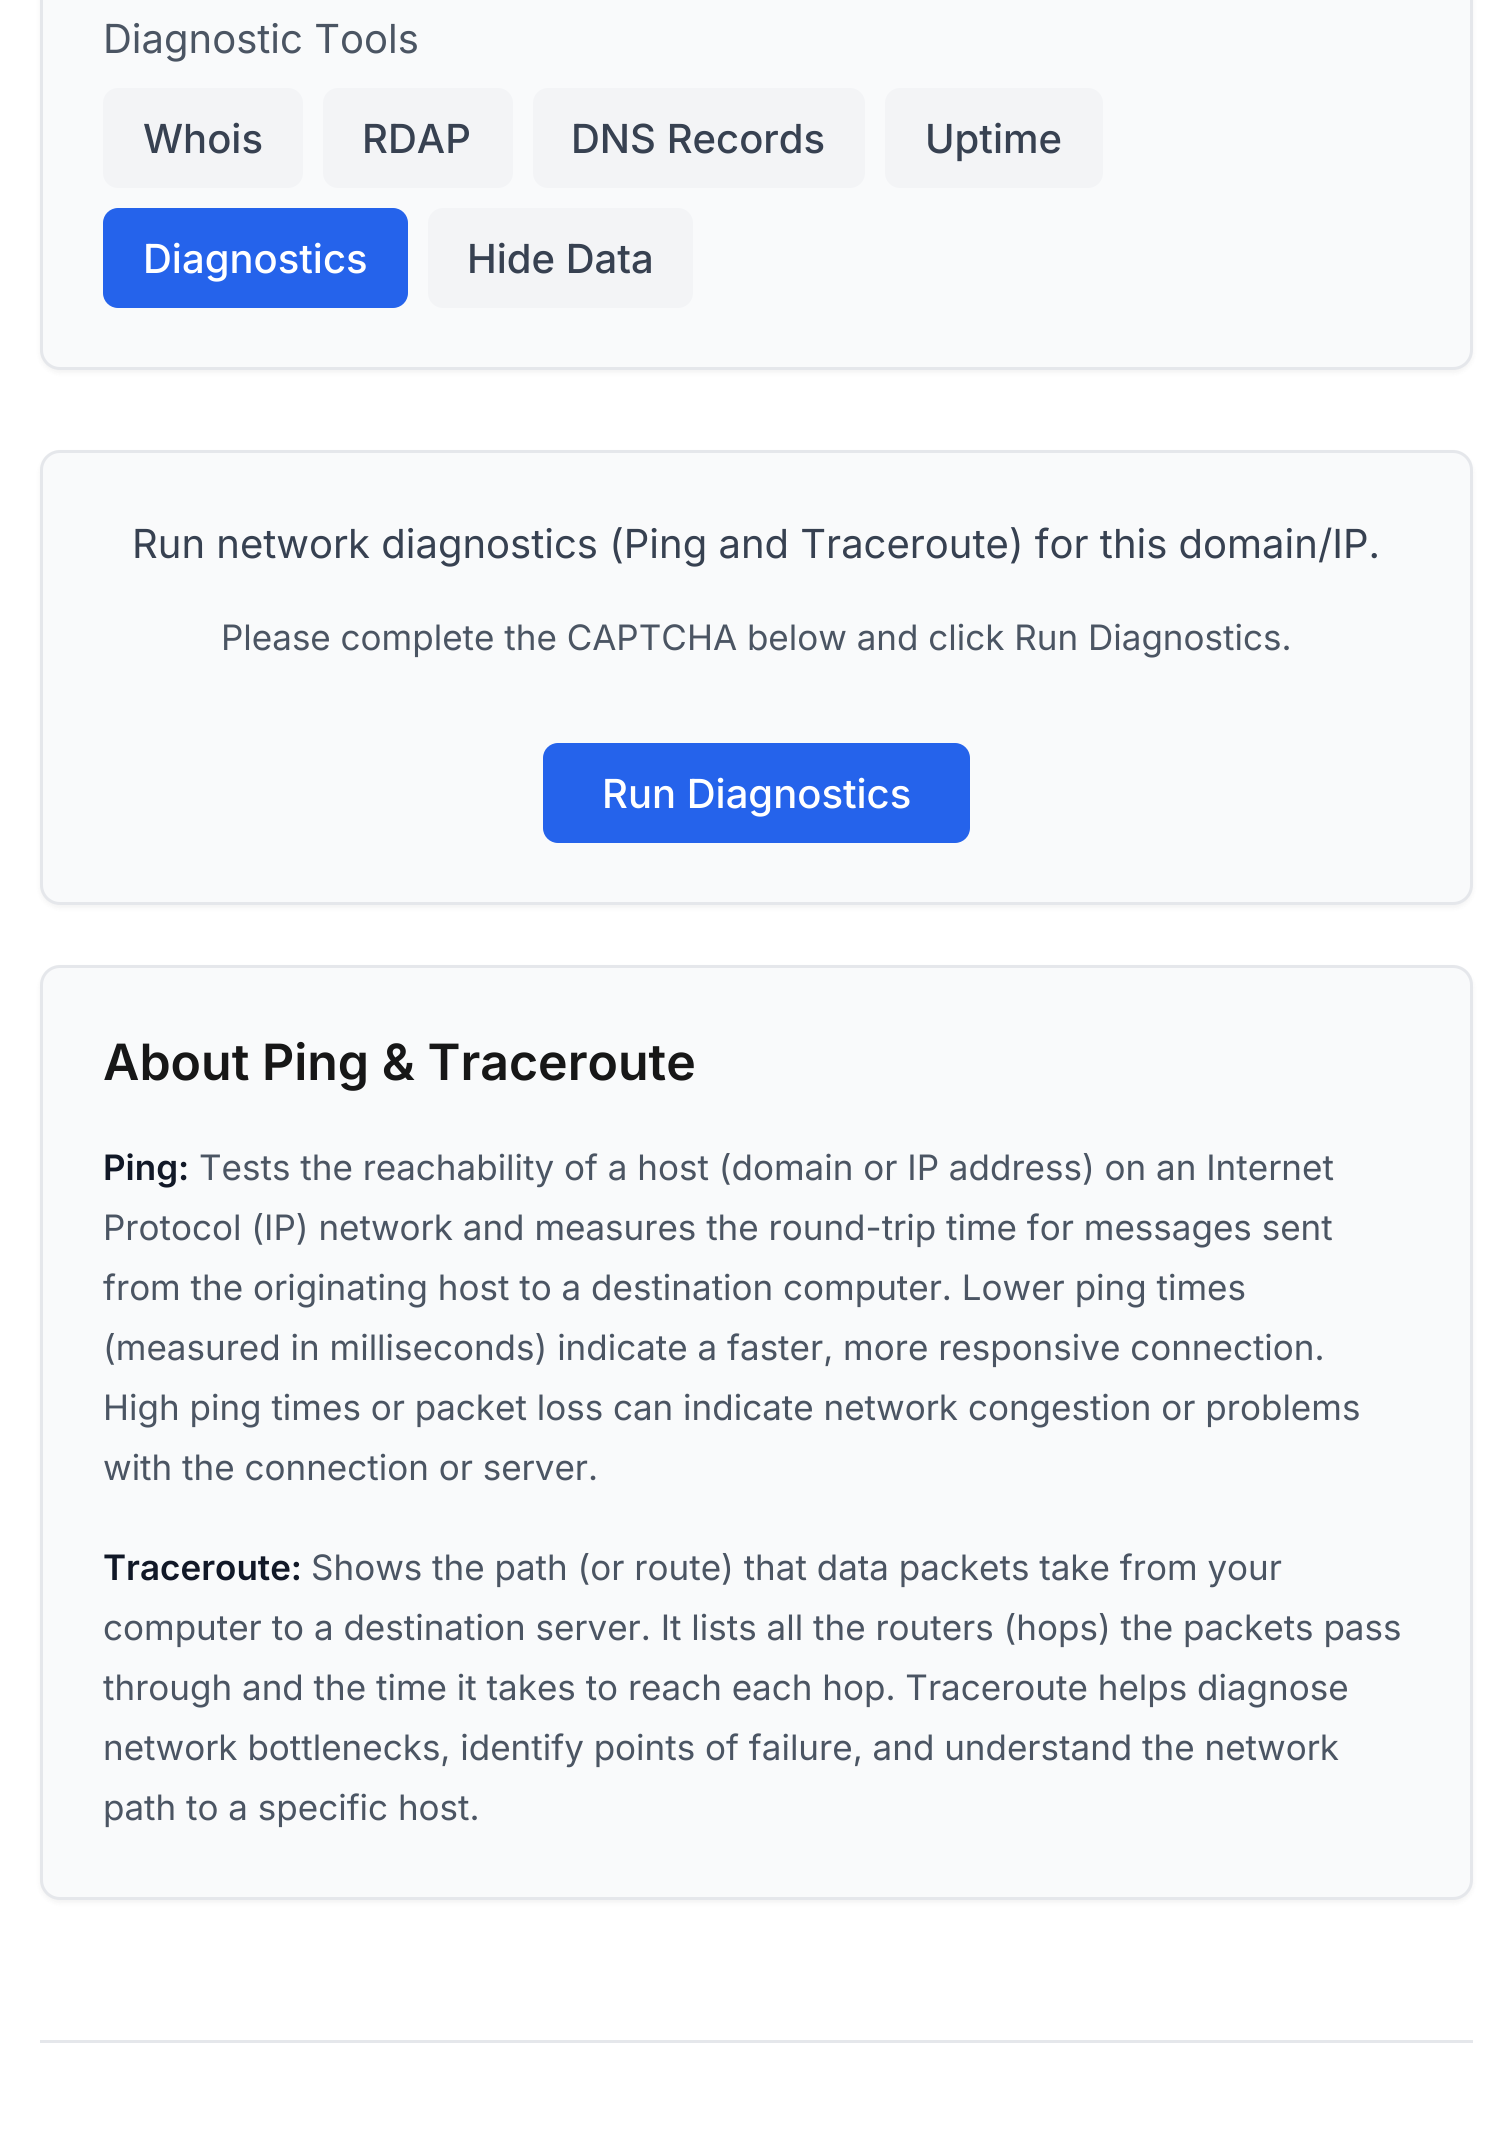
import math
import cairocffi as cairo

surface = cairo.ImageSurface(cairo.FORMAT_RGB24, 1511, 2141)
ctx = cairo.Context(surface)
options = cairo.FontOptions()
options.set_hint_metrics(cairo.HINT_METRICS_OFF)
options.set_hint_style(cairo.HINT_STYLE_NONE)
ctx.set_font_options(options)
ctx.set_miter_limit(4)


def rgb(r, g, b):
    ctx.set_source_rgb(r / 255, g / 255, b / 255)


def face(family, size, italic, bold):
    ctx.select_font_face(family, cairo.FONT_SLANT_ITALIC if italic else cairo.FONT_SLANT_NORMAL, cairo.FONT_WEIGHT_BOLD if bold else cairo.FONT_WEIGHT_NORMAL)
    ctx.set_font_size(size)


def label(x, y, s):
    ctx.move_to(x, y)
    ctx.show_text(s)


def rect(x, y, w, h):
    ctx.rectangle(x, y, w, h)
    ctx.fill()


def rrect(x, y, w, h, r):
    ctx.new_sub_path()
    for i, (u, v) in enumerate([(x + w - r, y + h - r), (x + r, y + h - r), (x + r, y + r), (x + w - r, y + r)]):
        ctx.arc(u, v, r, i * math.pi / 2, (i + 1) * math.pi / 2)
    ctx.close_path()


def soft_shadow(x, y, w, h, r, blur, alpha):
    ctx.push_group_with_content(cairo.CONTENT_ALPHA)
    ctx.set_operator(cairo.OPERATOR_SOURCE)
    for i in range(15, -16, -2):
        e = blur * i / 6
        if min(w, h) + 2 * e > 0:
            ctx.set_source_rgba(0, 0, 0, alpha * math.erfc((i - 1) / 8.5) / 2)
            rrect(x - e, y - e, w + 2 * e, h + 2 * e, max(0, min(r + e + blur * .6, min(w, h) / 2 + e)))
            ctx.fill()
    ctx.mask(ctx.pop_group())


rgb(255, 255, 255)
ctx.paint()
rgb(0, 0, 0)
soft_shadow(40, -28, 1433, 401, 20, 2.5, 0.05)
rgb(249, 250, 251)
rrect(41.5, -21.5, 1430, 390, 18.5)
ctx.fill_preserve()
rgb(229, 231, 235)
ctx.set_line_width(3)
ctx.stroke()
face('Inter', 40, 0, 0)
rgb(75, 85, 99)
label(103, 53, 'Diagnostic Tools')
rgb(243, 244, 246)
rrect(103, 88, 200, 100, 15)
ctx.fill()
face('Inter Medium', 40, 0, 0)
rgb(55, 65, 81)
label(143, 153, 'Whois')
rgb(243, 244, 246)
rrect(323, 88, 190, 100, 15)
ctx.fill()
rgb(55, 65, 81)
label(362, 153, 'RDAP')
rgb(243, 244, 246)
rrect(533, 88, 332, 100, 15)
ctx.fill()
rgb(55, 65, 81)
label(571, 153, 'DNS Records')
rgb(243, 244, 246)
rrect(885, 88, 218, 100, 15)
ctx.fill()
rgb(55, 65, 81)
label(925, 153, 'Uptime')
rgb(37, 99, 235)
rrect(103, 208, 305, 100, 15)
ctx.fill()
rgb(255, 255, 255)
label(143, 273, 'Diagnostics')
rgb(243, 244, 246)
rrect(428, 208, 265, 100, 15)
ctx.fill()
rgb(55, 65, 81)
label(467, 273, 'Hide Data')
rgb(0, 0, 0)
soft_shadow(40, 453, 1433, 455, 20, 2.5, 0.05)
rgb(249, 250, 251)
rrect(41.5, 451.5, 1430, 452, 18.5)
ctx.fill_preserve()
rgb(229, 231, 235)
ctx.stroke()
face('Inter', 40, 0, 0)
rgb(55, 65, 81)
label(132, 558, 'Run network diagnostics (Ping and Traceroute) for this domain/IP.')
face('Inter', 35, 0, 0)
rgb(75, 85, 99)
label(221, 650, 'Please complete the CAPTCHA below and click Run Diagnostics.')
rgb(37, 99, 235)
rrect(543, 743, 427, 100, 15)
ctx.fill()
face('Inter Medium', 40, 0, 0)
rgb(255, 255, 255)
label(602, 808, 'Run Diagnostics')
rgb(0, 0, 0)
soft_shadow(40, 968, 1433, 935, 20, 2.5, 0.05)
rgb(249, 250, 251)
rrect(41.5, 966.5, 1430, 932, 18.5)
ctx.fill_preserve()
rgb(229, 231, 235)
ctx.stroke()
face('Inter SemiBold', 50, 0, 0)
rgb(23, 23, 23)
label(103, 1080, 'About Ping & Traceroute')
face('Inter SemiBold', 35, 0, 0)
rgb(17, 24, 39)
label(103, 1180, 'Ping:')
face('Inter', 35, 0, 0)
rgb(75, 85, 99)
label(199, 1180, 'Tests the reachability of a host (domain or IP address) on an Internet')
label(103, 1240, 'Protocol (IP) network and measures the round-trip time for messages sent')
label(103, 1300, 'from the originating host to a destination computer. Lower ping times')
label(103, 1360, '(measured in milliseconds) indicate a faster, more responsive connection.')
label(103, 1420, 'High ping times or packet loss can indicate network congestion or problems')
label(103, 1480, 'with the connection or server.')
face('Inter SemiBold', 35, 0, 0)
rgb(17, 24, 39)
label(103, 1580, 'Traceroute:')
face('Inter', 35, 0, 0)
rgb(75, 85, 99)
label(311, 1580, 'Shows the path (or route) that data packets take from your')
label(103, 1640, 'computer to a destination server. It lists all the routers (hops) the packets pass')
label(103, 1700, 'through and the time it takes to reach each hop. Traceroute helps diagnose')
label(103, 1760, 'network bottlenecks, identify points of failure, and understand the network')
label(103, 1820, 'path to a specific host.')
rgb(229, 231, 235)
rect(40, 2040, 1433, 3)
surface.write_to_png('render.png')
